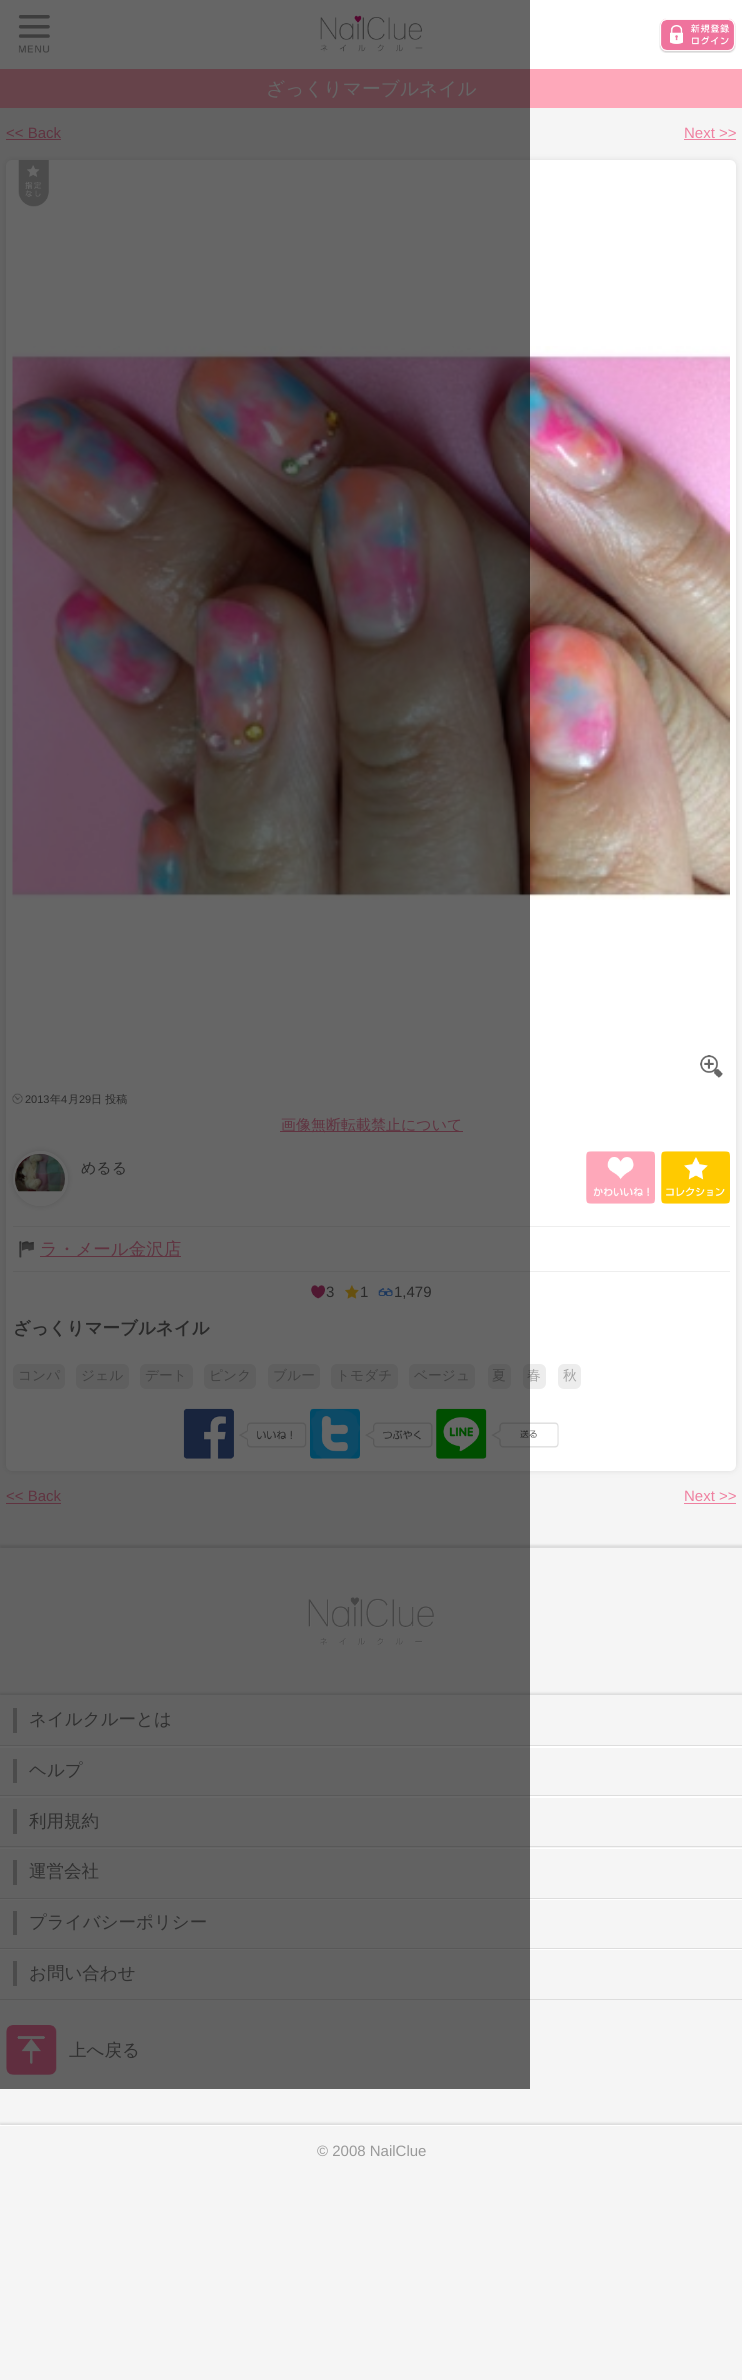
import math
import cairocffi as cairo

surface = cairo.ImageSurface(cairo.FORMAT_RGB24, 742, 2380)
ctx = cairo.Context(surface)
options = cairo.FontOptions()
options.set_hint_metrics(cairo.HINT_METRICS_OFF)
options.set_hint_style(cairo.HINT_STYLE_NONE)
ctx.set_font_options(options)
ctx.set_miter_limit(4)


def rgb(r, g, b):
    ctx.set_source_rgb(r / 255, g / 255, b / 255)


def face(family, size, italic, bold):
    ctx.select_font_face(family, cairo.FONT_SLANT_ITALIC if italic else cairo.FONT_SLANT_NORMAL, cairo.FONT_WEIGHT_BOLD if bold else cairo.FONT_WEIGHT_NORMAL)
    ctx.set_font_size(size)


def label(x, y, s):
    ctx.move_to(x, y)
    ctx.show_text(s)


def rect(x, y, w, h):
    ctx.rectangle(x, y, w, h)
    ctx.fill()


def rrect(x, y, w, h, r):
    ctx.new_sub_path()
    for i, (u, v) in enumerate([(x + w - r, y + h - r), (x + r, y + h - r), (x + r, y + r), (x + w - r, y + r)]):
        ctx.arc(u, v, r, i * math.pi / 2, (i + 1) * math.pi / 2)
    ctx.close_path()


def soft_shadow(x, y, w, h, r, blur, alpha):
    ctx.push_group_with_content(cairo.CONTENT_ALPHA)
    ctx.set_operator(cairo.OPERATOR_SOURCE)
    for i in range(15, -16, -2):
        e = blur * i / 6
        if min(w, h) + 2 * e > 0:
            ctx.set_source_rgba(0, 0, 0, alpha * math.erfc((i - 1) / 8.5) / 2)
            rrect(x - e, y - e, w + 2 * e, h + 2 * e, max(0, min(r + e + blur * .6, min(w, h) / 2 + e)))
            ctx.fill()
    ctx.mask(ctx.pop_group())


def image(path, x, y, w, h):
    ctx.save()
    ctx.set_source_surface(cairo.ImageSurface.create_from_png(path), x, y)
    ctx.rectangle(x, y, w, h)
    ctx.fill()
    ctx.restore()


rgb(245, 245, 245)
ctx.paint()
rgb(255, 255, 255)
rect(0, 0, 742, 69)
image('image0.png', 18, 15, 32, 38)
image('image1.png', 320, 15, 103, 37)
image('image2.png', 659, 18, 77, 35)
rgb(254, 168, 186)
rect(0, 69, 742, 39)
face('WenQuanYi Zen Hei Medium', 18.75, 0, 0)
rgb(255, 255, 255)
label(266, 95, 'ざっくりマーブルネイル')
face('Liberation Sans', 15, 0, 0)
rgb(239, 128, 160)
label(6, 138, '<< Back')
rect(6, 139, 55, 1)
rgb(221, 221, 221)
soft_shadow(6, 160, 730, 1311, 6, 3, 1)
rgb(255, 255, 255)
rrect(6, 160, 730, 1311, 6)
ctx.fill()
image('image3.png', 18, 160, 31, 47)
image('image4.png', 12, 346, 718, 554)
image('image6.png', 12, 1093, 11, 11)
face('Liberation Sans', 11, 0, 0)
rgb(102, 102, 102)
label(25, 1103, '2013')
face('WenQuanYi Zen Hei Medium', 11, 0, 0)
label(50, 1103, '年')
face('Liberation Sans', 11, 0, 0)
label(61, 1103, '4')
face('WenQuanYi Zen Hei Medium', 11, 0, 0)
label(68, 1103, '月')
face('Liberation Sans', 11, 0, 0)
label(79, 1103, '29')
face('WenQuanYi Zen Hei Medium', 11, 0, 0)
label(91, 1103, '日 投稿')
rgb(239, 128, 160)
rect(280, 1131, 183, 1)
face('WenQuanYi Zen Hei Medium', 15, 0, 0)
label(281, 1130, '画像無断転載禁止について')
ctx.save()
ctx.set_fill_rule(cairo.FILL_RULE_EVEN_ODD)
ctx.new_path()
ctx.move_to(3, 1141)
ctx.line_to(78, 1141)
ctx.line_to(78, 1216)
ctx.line_to(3, 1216)
ctx.close_path()
ctx.move_to(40.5, 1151)
ctx.curve_to(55.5, 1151, 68, 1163.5, 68, 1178.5)
ctx.curve_to(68, 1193.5, 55.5, 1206, 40.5, 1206)
ctx.curve_to(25.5, 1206, 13, 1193.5, 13, 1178.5)
ctx.curve_to(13, 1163.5, 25.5, 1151, 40.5, 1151)
ctx.close_path()
ctx.clip()
rgb(221, 221, 221)
soft_shadow(13, 1151, 55, 55, 27.5, 3, 1)
ctx.restore()
ctx.arc(40.5, 1178.5, 26, 0, 2 * math.pi)
rgb(255, 255, 255)
ctx.set_line_width(3)
ctx.stroke()
image('image7.png', 15, 1153, 50, 39)
rgb(102, 102, 102)
label(81, 1173, 'めるる')
rgb(238, 238, 238)
rect(13, 1226, 717, 1)
image('image10.png', 19, 1241, 15, 17)
rgb(239, 128, 160)
rect(40, 1256, 141, 1)
face('WenQuanYi Zen Hei Medium', 17.5, 0, 0)
label(40, 1255, 'ラ・メール金沢店')
rgb(238, 238, 238)
rect(13, 1271, 717, 1)
image('image11.png', 311, 1285, 14, 14)
face('Liberation Sans', 15, 0, 0)
rgb(102, 102, 102)
label(326, 1297, '3')
image('image12.png', 345, 1285, 14, 14)
label(360, 1297, '1')
image('image13.png', 378, 1288, 15, 8)
label(394, 1297, '1,479')
face('WenQuanYi Zen Hei', 17.5, 0, 1)
label(13, 1334, 'ざっくりマーブルネイル')
rgb(237, 237, 237)
rrect(13, 1364, 52, 25, 6)
ctx.fill()
face('WenQuanYi Zen Hei Medium', 13.75, 0, 0)
rgb(163, 163, 163)
label(18, 1380, 'コンパ')
rgb(237, 237, 237)
rrect(76, 1364, 53, 25, 6)
ctx.fill()
rgb(163, 163, 163)
label(81, 1380, 'ジェル')
rgb(237, 237, 237)
rrect(140, 1364, 53, 25, 6)
ctx.fill()
rgb(163, 163, 163)
label(145, 1380, 'デート')
rgb(237, 237, 237)
rrect(204, 1364, 52, 25, 6)
ctx.fill()
rgb(163, 163, 163)
label(209, 1380, 'ピンク')
rgb(237, 237, 237)
rrect(268, 1364, 52, 25, 6)
ctx.fill()
rgb(163, 163, 163)
label(273, 1380, 'ブルー')
rgb(237, 237, 237)
rrect(331, 1364, 67, 25, 6)
ctx.fill()
rgb(163, 163, 163)
label(336, 1380, 'トモダチ')
rgb(237, 237, 237)
rrect(409, 1364, 66, 25, 6)
ctx.fill()
rgb(163, 163, 163)
label(414, 1380, 'ベージュ')
rgb(237, 237, 237)
rrect(488, 1364, 23, 25, 6)
ctx.fill()
rgb(163, 163, 163)
label(492, 1380, '夏')
rgb(237, 237, 237)
rrect(523, 1364, 23, 25, 6)
ctx.fill()
rgb(163, 163, 163)
label(527, 1380, '春')
image('image14.png', 183, 1408, 124, 51)
image('image15.png', 310, 1408, 123, 51)
image('image16.png', 436, 1408, 123, 51)
face('Liberation Sans', 15, 0, 0)
rgb(239, 128, 160)
label(6, 1501, '<< Back')
rect(6, 1503, 55, 1)
ctx.save()
ctx.rectangle(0, 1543, 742, 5)
ctx.clip()
rgb(221, 221, 221)
soft_shadow(0, 1545, 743, 655, 0, 1, 1)
ctx.restore()
image('image17.png', 308, 1597, 126, 48)
ctx.save()
ctx.rectangle(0, 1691, 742, 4)
ctx.clip()
rgb(221, 221, 221)
soft_shadow(0, 1693, 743, 305, 0, 1, 1)
ctx.restore()
rgb(255, 255, 255)
ctx.new_path()
ctx.move_to(0, 1746)
ctx.line_to(0, 1748)
ctx.line_to(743, 1748)
ctx.line_to(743, 1696)
ctx.line_to(742, 1696)
ctx.line_to(742, 1746)
ctx.close_path()
ctx.fill()
rgb(221, 221, 221)
rect(0, 1745, 742, 1)
rgb(187, 187, 187)
rect(13, 1708, 4, 25)
face('WenQuanYi Zen Hei Medium', 17.5, 0, 0)
rgb(119, 119, 119)
label(29, 1725, 'ネイルクルーとは')
rgb(255, 255, 255)
ctx.new_path()
ctx.move_to(0, 1796)
ctx.line_to(0, 1798)
ctx.line_to(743, 1798)
ctx.line_to(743, 1748)
ctx.line_to(742, 1748)
ctx.line_to(742, 1796)
ctx.close_path()
ctx.fill()
rgb(221, 221, 221)
rect(0, 1795, 742, 1)
rgb(187, 187, 187)
rect(13, 1759, 4, 24)
rgb(119, 119, 119)
label(29, 1776, 'ヘルプ')
rgb(255, 255, 255)
ctx.new_path()
ctx.move_to(0, 1848)
ctx.line_to(0, 1849)
ctx.line_to(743, 1849)
ctx.line_to(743, 1798)
ctx.line_to(742, 1798)
ctx.line_to(742, 1848)
ctx.close_path()
ctx.fill()
rgb(221, 221, 221)
rect(0, 1846, 742, 1)
rgb(187, 187, 187)
rect(13, 1809, 4, 25)
rgb(119, 119, 119)
label(29, 1827, '利用規約')
rgb(255, 255, 255)
ctx.new_path()
ctx.move_to(0, 1899)
ctx.line_to(0, 1900)
ctx.line_to(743, 1900)
ctx.line_to(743, 1849)
ctx.line_to(742, 1849)
ctx.line_to(742, 1899)
ctx.close_path()
ctx.fill()
rgb(221, 221, 221)
rect(0, 1898, 742, 1)
rgb(187, 187, 187)
rect(13, 1860, 4, 25)
rgb(119, 119, 119)
label(29, 1877, '運営会社')
rgb(255, 255, 255)
ctx.new_path()
ctx.move_to(0, 1949)
ctx.line_to(0, 1950)
ctx.line_to(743, 1950)
ctx.line_to(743, 1900)
ctx.line_to(742, 1900)
ctx.line_to(742, 1949)
ctx.close_path()
ctx.fill()
rgb(221, 221, 221)
rect(0, 1948, 742, 1)
rgb(187, 187, 187)
rect(13, 1911, 4, 24)
rgb(119, 119, 119)
label(29, 1928, 'プライバシーポリシー')
rgb(221, 221, 221)
rect(0, 1999, 742, 1)
rgb(187, 187, 187)
rect(13, 1961, 4, 25)
rgb(119, 119, 119)
label(29, 1979, 'お問い合わせ')
image('image18.png', 6, 2025, 51, 50)
label(69, 2056, '上へ戻る')
ctx.set_source_rgba(0, 0, 0, 0.6)
rect(0, 0, 530, 2089)
face('Liberation Sans', 15, 0, 0)
rgb(239, 128, 160)
label(684, 138, 'Next >>')
rect(684, 139, 52, 1)
image('image5.png', 700, 1055, 23, 23)
image('image8.png', 586, 1151, 69, 53)
image('image9.png', 661, 1151, 69, 53)
rgb(237, 237, 237)
rrect(558, 1364, 23, 25, 6)
ctx.fill()
face('WenQuanYi Zen Hei Medium', 13.75, 0, 0)
rgb(163, 163, 163)
label(563, 1380, '秋')
face('Liberation Sans', 15, 0, 0)
rgb(239, 128, 160)
label(684, 1501, 'Next >>')
rect(684, 1503, 52, 1)
ctx.save()
ctx.rectangle(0, 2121, 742, 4)
ctx.clip()
rgb(221, 221, 221)
soft_shadow(0, 2123, 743, 77, 0, 1, 1)
ctx.restore()
rgb(255, 255, 255)
rect(0, 2125, 742, 1)
rgb(153, 153, 153)
label(317, 2156, '© 2008 NailClue')
surface.write_to_png('render.png')
